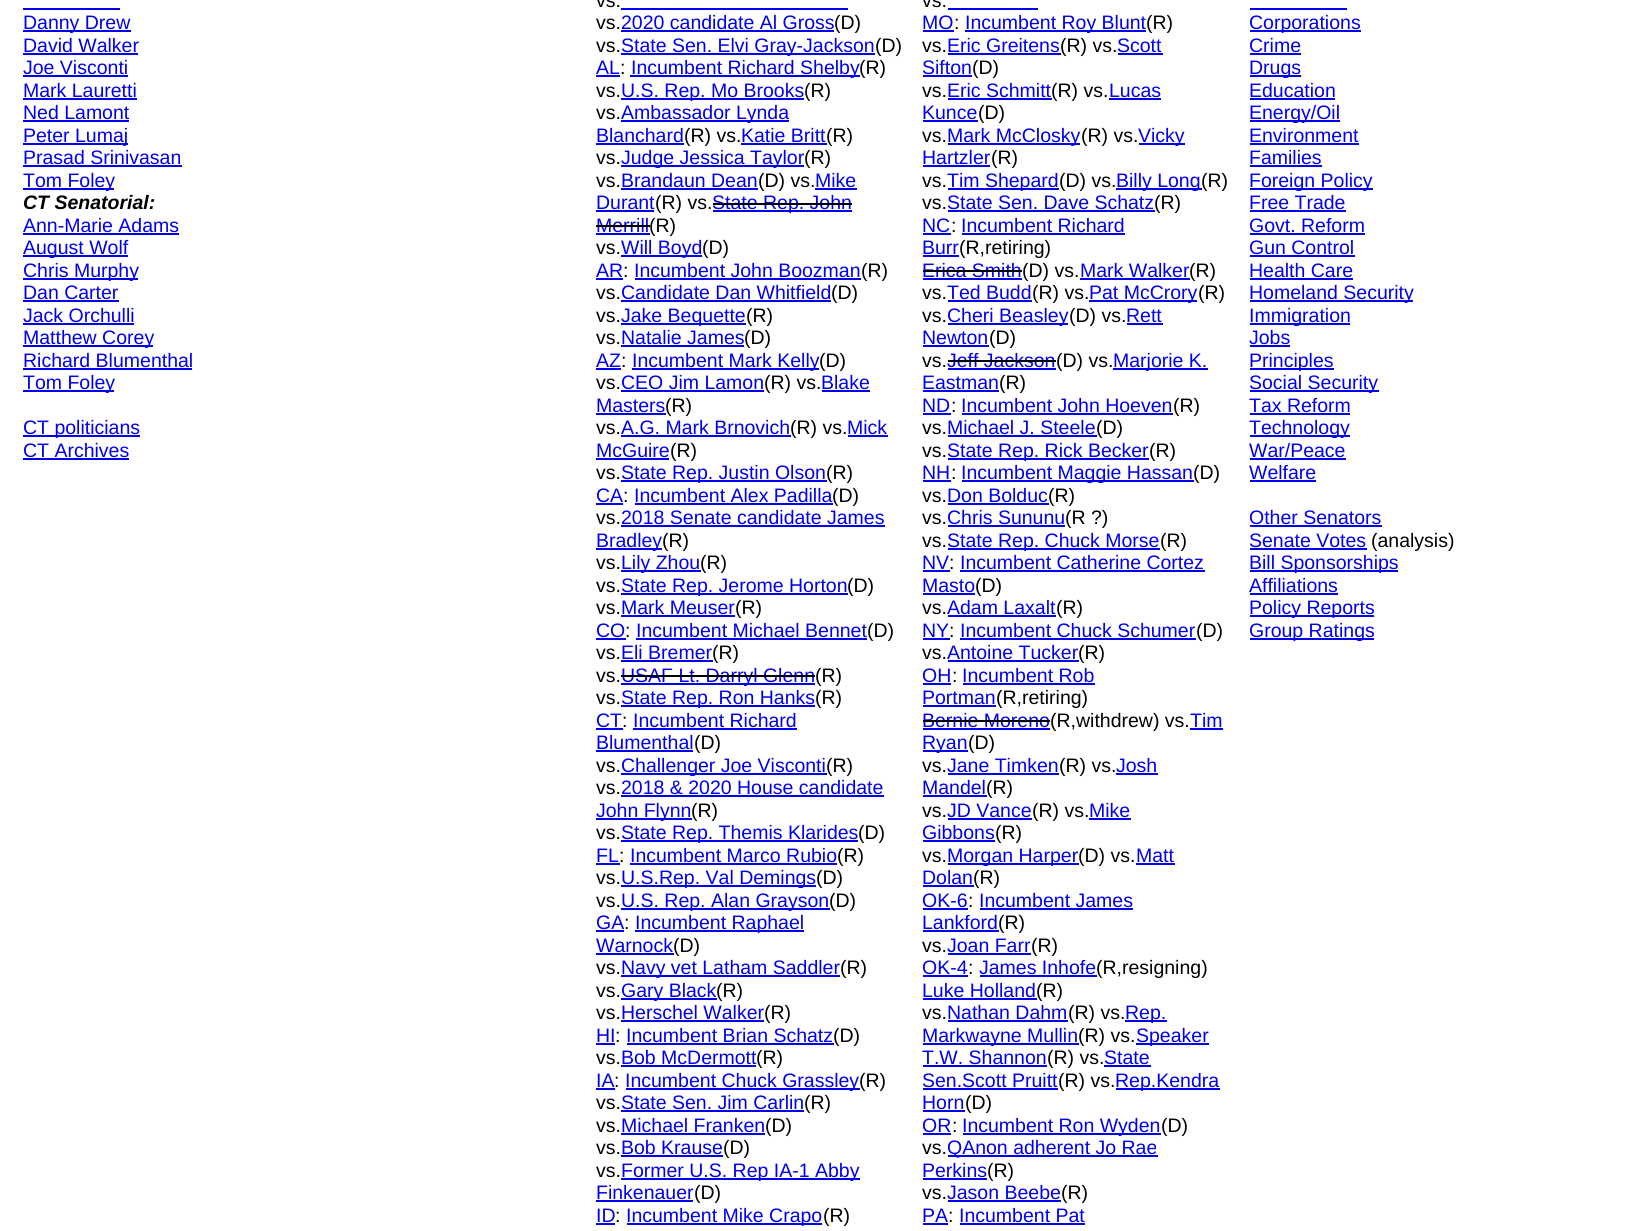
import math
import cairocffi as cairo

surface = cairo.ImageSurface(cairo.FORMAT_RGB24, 1646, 1231)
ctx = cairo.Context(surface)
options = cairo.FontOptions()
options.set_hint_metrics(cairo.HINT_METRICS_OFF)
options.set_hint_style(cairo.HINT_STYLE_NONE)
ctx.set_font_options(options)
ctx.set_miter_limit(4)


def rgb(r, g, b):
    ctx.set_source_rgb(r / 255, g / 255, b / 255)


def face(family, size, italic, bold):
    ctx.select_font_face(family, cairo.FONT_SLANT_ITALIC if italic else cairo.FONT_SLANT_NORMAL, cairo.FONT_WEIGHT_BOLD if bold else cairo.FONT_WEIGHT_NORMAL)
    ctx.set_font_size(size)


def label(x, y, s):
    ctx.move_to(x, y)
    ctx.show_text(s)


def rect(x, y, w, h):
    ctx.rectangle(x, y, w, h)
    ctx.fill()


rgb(255, 255, 255)
ctx.paint()
rgb(0, 0, 238)
rect(23, 30, 108, 2)
face('Liberation Sans', 19.5, 0, 0)
label(23, 29, 'Danny Drew')
rect(23, 8, 97, 2)
label(23, 52, 'David Walker')
rect(23, 53, 115, 2)
label(23, 74, 'Joe Visconti')
rect(23, 75, 105, 2)
label(23, 97, 'Mark Lauretti')
rect(23, 98, 114, 2)
label(23, 119, 'Ned Lamont')
rect(23, 120, 106, 2)
rect(23, 143, 105, 2)
label(23, 142, 'Peter Lumaj')
label(23, 164, 'Prasad Srinivasan')
rect(23, 165, 159, 2)
rect(23, 188, 91, 2)
label(23, 187, 'Tom Foley')
face('Liberation Sans', 19.5, 1, 1)
rgb(0, 0, 0)
label(23, 209, 'CT Senatorial:')
face('Liberation Sans', 19.5, 0, 0)
rgb(0, 0, 238)
label(23, 232, 'Ann-Marie Adams')
rect(23, 233, 156, 2)
rect(23, 255, 105, 2)
label(23, 254, 'August Wolf')
rect(23, 278, 115, 2)
label(23, 277, 'Chris Murphy')
label(23, 299, 'Dan Carter')
rect(23, 300, 96, 2)
label(23, 322, 'Jack Orchulli')
rect(23, 323, 111, 2)
rect(23, 345, 130, 2)
label(23, 344, 'Matthew Corey')
label(23, 367, 'Richard Blumenthal')
rect(23, 368, 169, 2)
rect(23, 390, 91, 2)
label(23, 389, 'Tom Foley')
rect(23, 435, 117, 2)
label(23, 434, 'CT politicians')
label(23, 457, 'CT Archives')
rect(23, 458, 106, 2)
rgb(0, 0, 0)
label(596, 7, 'vs.')
rgb(0, 0, 238)
rect(621, 8, 227, 2)
rgb(0, 0, 0)
label(596, 29, 'vs.')
rgb(0, 0, 238)
rect(621, 30, 213, 2)
label(621, 29, '2020 candidate Al Gross')
rgb(0, 0, 0)
label(834, 29, '(D)')
label(596, 52, 'vs.')
rgb(0, 0, 238)
rect(621, 53, 254, 2)
label(621, 52, 'State Sen. Elvi Gray-Jackson')
rgb(0, 0, 0)
label(875, 52, '(D)')
rgb(0, 0, 238)
label(596, 74, 'AL')
rgb(0, 0, 0)
label(620, 74, ':')
rgb(0, 0, 238)
rect(596, 75, 24, 2)
rect(630, 75, 230, 2)
label(631, 74, 'Incumbent Richard Shelby')
rgb(0, 0, 0)
label(859, 74, '(R)')
label(596, 97, 'vs.')
rgb(0, 0, 238)
rect(621, 98, 183, 2)
label(621, 97, 'U.S. Rep. Mo Brooks')
rgb(0, 0, 0)
label(804, 97, '(R)')
label(596, 119, 'vs.')
rgb(0, 0, 238)
rect(621, 120, 168, 2)
label(621, 119, 'Ambassador Lynda')
label(596, 142, 'Blanchard')
rgb(0, 0, 0)
label(684, 142, '(R) vs.')
rgb(0, 0, 238)
rect(596, 143, 88, 2)
label(741, 142, 'Katie Britt')
rgb(0, 0, 0)
label(826, 142, '(R)')
rgb(0, 0, 238)
rect(741, 143, 86, 2)
rgb(0, 0, 0)
label(596, 164, 'vs.')
rgb(0, 0, 238)
rect(621, 165, 183, 2)
label(621, 164, 'Judge Jessica Taylor')
rgb(0, 0, 0)
label(804, 164, '(R)')
label(596, 187, 'vs.')
rgb(0, 0, 238)
label(621, 187, 'Brandaun Dean')
rgb(0, 0, 0)
label(758, 187, '(D) vs.')
rgb(0, 0, 238)
rect(621, 188, 137, 2)
rect(815, 188, 42, 2)
label(815, 187, 'Mike')
label(596, 209, 'Durant')
rgb(0, 0, 0)
label(655, 209, '(R) vs.')
rgb(0, 0, 238)
rect(596, 210, 58, 2)
rect(713, 210, 139, 2)
label(712, 209, 'State Rep. John')
rgb(0, 0, 0)
rect(713, 203, 139, 2)
rgb(0, 0, 238)
label(596, 232, 'Merrill')
rgb(0, 0, 0)
rect(596, 225, 54, 2)
label(649, 232, '(R)')
rgb(0, 0, 238)
rect(596, 233, 54, 2)
rgb(0, 0, 0)
label(596, 254, 'vs.')
rgb(0, 0, 238)
rect(621, 255, 81, 2)
label(621, 254, 'Will Boyd')
rgb(0, 0, 0)
label(702, 254, '(D)')
rgb(0, 0, 238)
label(596, 277, 'AR')
rgb(0, 0, 0)
label(623, 277, ':')
rgb(0, 0, 238)
rect(596, 278, 27, 2)
label(634, 277, 'Incumbent John Boozman')
rgb(0, 0, 0)
label(861, 277, '(R)')
rgb(0, 0, 238)
rect(635, 278, 226, 2)
rgb(0, 0, 0)
label(596, 299, 'vs.')
rgb(0, 0, 238)
rect(621, 300, 210, 2)
label(621, 299, 'Candidate Dan Whitfield')
rgb(0, 0, 0)
label(831, 299, '(D)')
label(596, 322, 'vs.')
rgb(0, 0, 238)
rect(621, 323, 125, 2)
label(621, 322, 'Jake Bequette')
rgb(0, 0, 0)
label(746, 322, '(R)')
label(596, 344, 'vs.')
rgb(0, 0, 238)
rect(621, 345, 123, 2)
label(621, 344, 'Natalie James')
rgb(0, 0, 0)
label(744, 344, '(D)')
rgb(0, 0, 238)
label(596, 367, 'AZ')
rgb(0, 0, 0)
label(621, 367, ':')
rgb(0, 0, 238)
rect(596, 368, 25, 2)
rect(632, 368, 187, 2)
label(632, 367, 'Incumbent Mark Kelly')
rgb(0, 0, 0)
label(819, 367, '(D)')
label(596, 389, 'vs.')
rgb(0, 0, 238)
rect(621, 390, 143, 2)
label(621, 389, 'CEO Jim Lamon')
rgb(0, 0, 0)
label(764, 389, '(R) vs.')
rgb(0, 0, 238)
rect(822, 390, 48, 2)
label(821, 389, 'Blake')
label(596, 412, 'Masters')
rgb(0, 0, 0)
label(665, 412, '(R)')
rgb(0, 0, 238)
rect(596, 413, 70, 2)
rgb(0, 0, 0)
label(596, 434, 'vs.')
rgb(0, 0, 238)
label(621, 434, 'A.G. Mark Brnovich')
rgb(0, 0, 0)
label(790, 434, '(R) vs.')
rgb(0, 0, 238)
rect(621, 435, 170, 2)
rect(848, 435, 40, 2)
label(847, 434, 'Mick')
label(596, 457, 'McGuire')
rgb(0, 0, 0)
label(670, 457, '(R)')
rgb(0, 0, 238)
rect(596, 458, 73, 2)
rgb(0, 0, 0)
label(596, 479, 'vs.')
rgb(0, 0, 238)
rect(621, 480, 206, 2)
label(621, 479, 'State Rep. Justin Olson')
rgb(0, 0, 0)
label(826, 479, '(R)')
rgb(0, 0, 238)
label(596, 502, 'CA')
rgb(0, 0, 0)
label(623, 502, ':')
rgb(0, 0, 238)
rect(596, 503, 27, 2)
label(634, 502, 'Incumbent Alex Padilla')
rgb(0, 0, 0)
label(832, 502, '(D)')
rgb(0, 0, 238)
rect(635, 503, 198, 2)
rgb(0, 0, 0)
label(596, 524, 'vs.')
rgb(0, 0, 238)
rect(621, 525, 264, 2)
label(621, 524, '2018 Senate candidate James')
rect(596, 548, 66, 2)
label(596, 547, 'Bradley')
rgb(0, 0, 0)
label(662, 547, '(R)')
label(596, 569, 'vs.')
rgb(0, 0, 238)
rect(621, 570, 80, 2)
label(621, 569, 'Lily Zhou')
rgb(0, 0, 0)
label(700, 569, '(R)')
label(596, 592, 'vs.')
rgb(0, 0, 238)
rect(621, 593, 227, 2)
label(621, 592, 'State Rep. Jerome Horton')
rgb(0, 0, 0)
label(847, 592, '(D)')
label(596, 614, 'vs.')
rgb(0, 0, 238)
label(621, 614, 'Mark Meuser')
rgb(0, 0, 0)
label(735, 614, '(R)')
rgb(0, 0, 238)
rect(621, 615, 114, 2)
label(596, 637, 'CO')
rgb(0, 0, 0)
label(625, 637, ':')
rgb(0, 0, 238)
rect(596, 638, 30, 2)
label(636, 637, 'Incumbent Michael Bennet')
rgb(0, 0, 0)
label(867, 637, '(D)')
rgb(0, 0, 238)
rect(636, 638, 231, 2)
rgb(0, 0, 0)
label(596, 659, 'vs.')
rgb(0, 0, 238)
label(621, 659, 'Eli Bremer')
rgb(0, 0, 0)
label(712, 659, '(R)')
rgb(0, 0, 238)
rect(621, 660, 92, 2)
rgb(0, 0, 0)
label(596, 682, 'vs.')
rgb(0, 0, 238)
rect(621, 683, 194, 2)
label(621, 682, 'USAF Lt. Darryl Glenn')
rgb(0, 0, 0)
rect(621, 675, 194, 2)
label(815, 682, '(R)')
label(596, 704, 'vs.')
rgb(0, 0, 238)
rect(621, 705, 194, 2)
label(621, 704, 'State Rep. Ron Hanks')
rgb(0, 0, 0)
label(815, 704, '(R)')
rgb(0, 0, 238)
label(596, 727, 'CT')
rgb(0, 0, 0)
label(622, 727, ':')
rgb(0, 0, 238)
rect(596, 728, 27, 2)
label(633, 727, 'Incumbent Richard')
rect(633, 728, 164, 2)
label(596, 749, 'Blumenthal')
rgb(0, 0, 0)
label(694, 749, '(D)')
rgb(0, 0, 238)
rect(596, 750, 97, 2)
rgb(0, 0, 0)
label(596, 772, 'vs.')
rgb(0, 0, 238)
rect(621, 773, 206, 2)
label(621, 772, 'Challenger Joe Visconti')
rgb(0, 0, 0)
label(826, 772, '(R)')
label(596, 794, 'vs.')
rgb(0, 0, 238)
rect(621, 795, 263, 2)
label(621, 794, '2018 & 2020 House candidate')
rect(596, 818, 96, 2)
label(596, 817, 'John Flynn')
rgb(0, 0, 0)
label(691, 817, '(R)')
label(596, 839, 'vs.')
rgb(0, 0, 238)
rect(621, 840, 237, 2)
label(621, 839, 'State Rep. Themis Klarides')
rgb(0, 0, 0)
label(858, 839, '(D)')
rgb(0, 0, 238)
label(596, 862, 'FL')
rgb(0, 0, 0)
label(619, 862, ':')
rgb(0, 0, 238)
rect(596, 863, 24, 2)
label(630, 862, 'Incumbent Marco Rubio')
rgb(0, 0, 0)
label(837, 862, '(R)')
rgb(0, 0, 238)
rect(630, 863, 207, 2)
rgb(0, 0, 0)
label(596, 884, 'vs.')
rgb(0, 0, 238)
rect(621, 885, 195, 2)
label(621, 884, 'U.S.Rep. Val Demings')
rgb(0, 0, 0)
label(816, 884, '(D)')
label(596, 907, 'vs.')
rgb(0, 0, 238)
rect(621, 908, 209, 2)
label(621, 907, 'U.S. Rep. Alan Grayson')
rgb(0, 0, 0)
label(829, 907, '(D)')
rgb(0, 0, 238)
label(596, 929, 'GA')
rgb(0, 0, 0)
label(624, 929, ':')
rgb(0, 0, 238)
rect(596, 930, 28, 2)
rect(635, 930, 169, 2)
label(635, 929, 'Incumbent Raphael')
label(596, 952, 'Warnock')
rgb(0, 0, 0)
label(673, 952, '(D)')
rgb(0, 0, 238)
rect(596, 953, 78, 2)
rgb(0, 0, 0)
label(596, 974, 'vs.')
rgb(0, 0, 238)
rect(621, 975, 219, 2)
label(621, 974, 'Navy vet Latham Saddler')
rgb(0, 0, 0)
label(840, 974, '(R)')
label(596, 997, 'vs.')
rgb(0, 0, 238)
rect(621, 998, 96, 2)
label(621, 997, 'Gary Black')
rgb(0, 0, 0)
label(716, 997, '(R)')
label(596, 1019, 'vs.')
rgb(0, 0, 238)
rect(621, 1020, 143, 2)
label(621, 1019, 'Herschel Walker')
rgb(0, 0, 0)
label(764, 1019, '(R)')
rgb(0, 0, 238)
label(596, 1042, 'HI')
rgb(0, 0, 0)
label(615, 1042, ':')
rgb(0, 0, 238)
rect(596, 1043, 19, 2)
label(626, 1042, 'Incumbent Brian Schatz')
rgb(0, 0, 0)
label(833, 1042, '(D)')
rgb(0, 0, 238)
rect(627, 1043, 207, 2)
rgb(0, 0, 0)
label(596, 1064, 'vs.')
rgb(0, 0, 238)
rect(621, 1065, 135, 2)
label(621, 1064, 'Bob McDermott')
rgb(0, 0, 0)
label(756, 1064, '(R)')
rgb(0, 0, 238)
label(596, 1087, 'IA')
rgb(0, 0, 0)
label(614, 1087, ':')
rgb(0, 0, 238)
rect(596, 1088, 19, 2)
rect(626, 1088, 234, 2)
label(625, 1087, 'Incumbent Chuck Grassley')
rgb(0, 0, 0)
label(859, 1087, '(R)')
label(596, 1109, 'vs.')
rgb(0, 0, 238)
rect(621, 1110, 183, 2)
label(621, 1109, 'State Sen. Jim Carlin')
rgb(0, 0, 0)
label(804, 1109, '(R)')
label(596, 1132, 'vs.')
rgb(0, 0, 238)
rect(621, 1133, 144, 2)
label(621, 1132, 'Michael Franken')
rgb(0, 0, 0)
label(765, 1132, '(D)')
label(596, 1154, 'vs.')
rgb(0, 0, 238)
rect(621, 1155, 102, 2)
label(621, 1154, 'Bob Krause')
rgb(0, 0, 0)
label(723, 1154, '(D)')
label(596, 1177, 'vs.')
rgb(0, 0, 238)
rect(621, 1178, 239, 2)
label(621, 1177, 'Former U.S. Rep IA-1 Abby')
label(596, 1199, 'Finkenauer')
rgb(0, 0, 0)
label(694, 1199, '(D)')
rgb(0, 0, 238)
rect(596, 1200, 97, 2)
label(596, 1222, 'ID')
rgb(0, 0, 0)
label(615, 1222, ':')
rgb(0, 0, 238)
rect(596, 1223, 19, 2)
rect(627, 1223, 195, 2)
label(626, 1222, 'Incumbent Mike Crapo')
rgb(0, 0, 0)
label(823, 1222, '(R)')
label(922, 7, 'vs.')
rgb(0, 0, 238)
rect(948, 8, 90, 2)
label(922, 29, 'MO')
rgb(0, 0, 0)
label(954, 29, ':')
rgb(0, 0, 238)
rect(923, 30, 31, 2)
rect(965, 30, 181, 2)
label(965, 29, 'Incumbent Roy Blunt')
rgb(0, 0, 0)
label(1146, 29, '(R)')
label(922, 52, 'vs.')
rgb(0, 0, 238)
label(947, 52, 'Eric Greitens')
rgb(0, 0, 0)
label(1060, 52, '(R) vs.')
rgb(0, 0, 238)
rect(948, 53, 113, 2)
rect(1118, 53, 45, 2)
label(1117, 52, 'Scott')
label(922, 74, 'Sifton')
rgb(0, 0, 0)
label(972, 74, '(D)')
rgb(0, 0, 238)
rect(923, 75, 49, 2)
rgb(0, 0, 0)
label(922, 97, 'vs.')
rgb(0, 0, 238)
label(947, 97, 'Eric Schmitt')
rgb(0, 0, 0)
label(1051, 97, '(R) vs.')
rgb(0, 0, 238)
rect(948, 98, 104, 2)
rect(1109, 98, 52, 2)
label(1109, 97, 'Lucas')
label(922, 119, 'Kunce')
rgb(0, 0, 0)
label(978, 119, '(D)')
rgb(0, 0, 238)
rect(923, 120, 55, 2)
rgb(0, 0, 0)
label(922, 142, 'vs.')
rgb(0, 0, 238)
rect(948, 143, 132, 2)
label(947, 142, 'Mark McClosky')
rgb(0, 0, 0)
label(1081, 142, '(R) vs.')
rgb(0, 0, 238)
rect(1139, 143, 46, 2)
label(1138, 142, 'Vicky')
label(922, 164, 'Hartzler')
rgb(0, 0, 0)
label(991, 164, '(R)')
rgb(0, 0, 238)
rect(923, 165, 67, 2)
rgb(0, 0, 0)
label(922, 187, 'vs.')
rgb(0, 0, 238)
rect(948, 188, 111, 2)
label(947, 187, 'Tim Shepard')
rgb(0, 0, 0)
label(1059, 187, '(D) vs.')
rgb(0, 0, 238)
rect(1116, 188, 86, 2)
label(1116, 187, 'Billy Long')
rgb(0, 0, 0)
label(1201, 187, '(R)')
label(922, 209, 'vs.')
rgb(0, 0, 238)
label(947, 209, 'State Sen. Dave Schatz')
rgb(0, 0, 0)
label(1154, 209, '(R)')
rgb(0, 0, 238)
rect(948, 210, 207, 2)
label(922, 232, 'NC')
rgb(0, 0, 0)
label(951, 232, ':')
rgb(0, 0, 238)
rect(923, 233, 28, 2)
label(961, 232, 'Incumbent Richard')
rect(962, 233, 163, 2)
label(922, 254, 'Burr')
rgb(0, 0, 0)
label(959, 254, '(R,retiring)')
rgb(0, 0, 238)
rect(923, 255, 36, 2)
label(922, 277, 'Erica Smith')
rgb(0, 0, 0)
rect(923, 270, 99, 2)
label(1022, 277, '(D) vs.')
rgb(0, 0, 238)
rect(923, 278, 99, 2)
label(1080, 277, 'Mark Walker')
rgb(0, 0, 0)
label(1189, 277, '(R)')
rgb(0, 0, 238)
rect(1080, 278, 110, 2)
rgb(0, 0, 0)
label(922, 299, 'vs.')
rgb(0, 0, 238)
label(947, 299, 'Ted Budd')
rgb(0, 0, 0)
label(1032, 299, '(R) vs.')
rgb(0, 0, 238)
rect(948, 300, 84, 2)
rect(1089, 300, 108, 2)
label(1089, 299, 'Pat McCrory')
rgb(0, 0, 0)
label(1198, 299, '(R)')
label(922, 322, 'vs.')
rgb(0, 0, 238)
rect(948, 323, 120, 2)
label(947, 322, 'Cheri Beasley')
rgb(0, 0, 0)
label(1069, 322, '(D) vs.')
rgb(0, 0, 238)
rect(1127, 323, 36, 2)
label(1126, 322, 'Rett')
label(922, 344, 'Newton')
rgb(0, 0, 0)
label(989, 344, '(D)')
rgb(0, 0, 238)
rect(923, 345, 66, 2)
rgb(0, 0, 0)
label(922, 367, 'vs.')
rgb(0, 0, 238)
label(947, 367, 'Jeff Jackson')
rgb(0, 0, 0)
rect(948, 360, 108, 2)
label(1056, 367, '(D) vs.')
rgb(0, 0, 238)
rect(948, 368, 108, 2)
rect(1113, 368, 95, 2)
label(1113, 367, 'Marjorie K.')
label(922, 389, 'Eastman')
rgb(0, 0, 0)
label(999, 389, '(R)')
rgb(0, 0, 238)
rect(923, 390, 76, 2)
label(922, 412, 'ND')
rgb(0, 0, 0)
label(951, 412, ':')
rgb(0, 0, 238)
rect(923, 413, 28, 2)
label(961, 412, 'Incumbent John Hoeven')
rgb(0, 0, 0)
label(1173, 412, '(R)')
rgb(0, 0, 238)
rect(962, 413, 211, 2)
rgb(0, 0, 0)
label(922, 434, 'vs.')
rgb(0, 0, 238)
label(947, 434, 'Michael J. Steele')
rgb(0, 0, 0)
label(1096, 434, '(D)')
rgb(0, 0, 238)
rect(948, 435, 149, 2)
rgb(0, 0, 0)
label(922, 457, 'vs.')
rgb(0, 0, 238)
rect(948, 458, 201, 2)
label(947, 457, 'State Rep. Rick Becker')
rgb(0, 0, 0)
label(1149, 457, '(R)')
rgb(0, 0, 238)
label(922, 479, 'NH')
rgb(0, 0, 0)
label(951, 479, ':')
rgb(0, 0, 238)
rect(923, 480, 28, 2)
rect(962, 480, 232, 2)
label(961, 479, 'Incumbent Maggie Hassan')
rgb(0, 0, 0)
label(1193, 479, '(D)')
label(922, 502, 'vs.')
rgb(0, 0, 238)
label(947, 502, 'Don Bolduc')
rgb(0, 0, 0)
label(1048, 502, '(R)')
rgb(0, 0, 238)
rect(948, 503, 101, 2)
rgb(0, 0, 0)
label(922, 524, 'vs.')
rgb(0, 0, 238)
label(947, 524, 'Chris Sununu')
rgb(0, 0, 0)
label(1065, 524, '(R ?)')
rgb(0, 0, 238)
rect(948, 525, 117, 2)
rgb(0, 0, 0)
label(922, 547, 'vs.')
rgb(0, 0, 238)
rect(948, 548, 212, 2)
label(947, 547, 'State Rep. Chuck Morse')
rgb(0, 0, 0)
label(1160, 547, '(R)')
rgb(0, 0, 238)
label(922, 569, 'NV')
rgb(0, 0, 0)
label(949, 569, ':')
rgb(0, 0, 238)
rect(923, 570, 27, 2)
label(960, 569, 'Incumbent Catherine Cortez')
rect(960, 570, 245, 2)
label(922, 592, 'Masto')
rgb(0, 0, 0)
label(975, 592, '(D)')
rgb(0, 0, 238)
rect(923, 593, 52, 2)
rgb(0, 0, 0)
label(922, 614, 'vs.')
rgb(0, 0, 238)
label(947, 614, 'Adam Laxalt')
rgb(0, 0, 0)
label(1056, 614, '(R)')
rgb(0, 0, 238)
rect(948, 615, 108, 2)
label(922, 637, 'NY')
rgb(0, 0, 0)
label(949, 637, ':')
rgb(0, 0, 238)
rect(923, 638, 27, 2)
label(960, 637, 'Incumbent Chuck Schumer')
rgb(0, 0, 0)
label(1196, 637, '(D)')
rgb(0, 0, 238)
rect(960, 638, 236, 2)
rgb(0, 0, 0)
label(922, 659, 'vs.')
rgb(0, 0, 238)
label(947, 659, 'Antoine Tucker')
rgb(0, 0, 0)
label(1078, 659, '(R)')
rgb(0, 0, 238)
rect(948, 660, 131, 2)
label(922, 682, 'OH')
rect(923, 683, 28, 2)
rgb(0, 0, 0)
label(952, 682, ':')
rgb(0, 0, 238)
label(962, 682, 'Incumbent Rob')
rect(963, 683, 132, 2)
label(922, 704, 'Portman')
rgb(0, 0, 0)
label(996, 704, '(R,retiring)')
rgb(0, 0, 238)
rect(923, 705, 73, 2)
label(922, 727, 'Bernie Moreno')
rgb(0, 0, 0)
rect(923, 720, 127, 2)
label(1050, 727, '(R,withdrew) vs.')
rgb(0, 0, 238)
rect(923, 728, 127, 2)
rect(1190, 728, 33, 2)
label(1190, 727, 'Tim')
rect(923, 750, 45, 2)
label(922, 749, 'Ryan')
rgb(0, 0, 0)
label(968, 749, '(D)')
label(922, 772, 'vs.')
rgb(0, 0, 238)
label(947, 772, 'Jane Timken')
rgb(0, 0, 0)
label(1059, 772, '(R) vs.')
rgb(0, 0, 238)
rect(948, 773, 111, 2)
rect(1116, 773, 42, 2)
label(1116, 772, 'Josh')
label(922, 794, 'Mandel')
rgb(0, 0, 0)
label(986, 794, '(R)')
rgb(0, 0, 238)
rect(923, 795, 64, 2)
rgb(0, 0, 0)
label(922, 817, 'vs.')
rgb(0, 0, 238)
label(947, 817, 'JD Vance')
rgb(0, 0, 0)
label(1032, 817, '(R) vs.')
rgb(0, 0, 238)
rect(948, 818, 84, 2)
rect(1089, 818, 42, 2)
label(1089, 817, 'Mike')
label(922, 839, 'Gibbons')
rgb(0, 0, 0)
label(995, 839, '(R)')
rgb(0, 0, 238)
rect(923, 840, 72, 2)
rgb(0, 0, 0)
label(922, 862, 'vs.')
rgb(0, 0, 238)
rect(948, 863, 131, 2)
label(947, 862, 'Morgan Harper')
rgb(0, 0, 0)
label(1078, 862, '(D) vs.')
rgb(0, 0, 238)
rect(1136, 863, 39, 2)
label(1136, 862, 'Matt')
label(922, 884, 'Dolan')
rgb(0, 0, 0)
label(973, 884, '(R)')
rgb(0, 0, 238)
rect(923, 885, 51, 2)
label(922, 907, 'OK-6')
rgb(0, 0, 0)
label(968, 907, ':')
rgb(0, 0, 238)
rect(923, 908, 45, 2)
label(979, 907, 'Incumbent James')
rect(980, 908, 153, 2)
label(922, 929, 'Lankford')
rgb(0, 0, 0)
label(998, 929, '(R)')
rgb(0, 0, 238)
rect(923, 930, 76, 2)
rgb(0, 0, 0)
label(922, 952, 'vs.')
rgb(0, 0, 238)
label(947, 952, 'Joan Farr')
rgb(0, 0, 0)
label(1031, 952, '(R)')
rgb(0, 0, 238)
rect(948, 953, 83, 2)
label(922, 974, 'OK-4')
rgb(0, 0, 0)
label(968, 974, ':')
rgb(0, 0, 238)
rect(923, 975, 45, 2)
label(979, 974, 'James Inhofe')
rgb(0, 0, 0)
label(1096, 974, '(R,resigning)')
rgb(0, 0, 238)
rect(980, 975, 117, 2)
label(922, 997, 'Luke Holland')
rgb(0, 0, 0)
label(1036, 997, '(R)')
rgb(0, 0, 238)
rect(923, 998, 114, 2)
rgb(0, 0, 0)
label(922, 1019, 'vs.')
rgb(0, 0, 238)
label(947, 1019, 'Nathan Dahm')
rgb(0, 0, 0)
label(1068, 1019, '(R) vs.')
rgb(0, 0, 238)
rect(948, 1020, 120, 2)
rect(1125, 1020, 42, 2)
label(1125, 1019, 'Rep.')
rect(923, 1043, 156, 2)
label(922, 1042, 'Markwayne Mullin')
rgb(0, 0, 0)
label(1078, 1042, '(R) vs.')
rgb(0, 0, 238)
rect(1136, 1043, 73, 2)
label(1136, 1042, 'Speaker')
label(922, 1064, 'T.W. Shannon')
rgb(0, 0, 0)
label(1047, 1064, '(R) vs.')
rgb(0, 0, 238)
rect(923, 1065, 124, 2)
rect(1104, 1065, 47, 2)
label(1104, 1064, 'State')
label(922, 1087, 'Sen.Scott Pruitt')
rgb(0, 0, 0)
label(1058, 1087, '(R) vs.')
rgb(0, 0, 238)
rect(923, 1088, 135, 2)
rect(1116, 1088, 104, 2)
label(1115, 1087, 'Rep.Kendra')
label(922, 1109, 'Horn')
rgb(0, 0, 0)
label(965, 1109, '(D)')
rgb(0, 0, 238)
rect(923, 1110, 42, 2)
label(922, 1132, 'OR')
rect(923, 1133, 28, 2)
rgb(0, 0, 0)
label(952, 1132, ':')
rgb(0, 0, 238)
rect(963, 1133, 198, 2)
label(962, 1132, 'Incumbent Ron Wyden')
rgb(0, 0, 0)
label(1161, 1132, '(D)')
label(922, 1154, 'vs.')
rgb(0, 0, 238)
rect(948, 1155, 210, 2)
label(947, 1154, 'QAnon adherent Jo Rae')
label(922, 1177, 'Perkins')
rgb(0, 0, 0)
label(987, 1177, '(R)')
rgb(0, 0, 238)
rect(923, 1178, 64, 2)
rgb(0, 0, 0)
label(922, 1199, 'vs.')
rgb(0, 0, 238)
label(947, 1199, 'Jason Beebe')
rgb(0, 0, 0)
label(1061, 1199, '(R)')
rgb(0, 0, 238)
rect(948, 1200, 113, 2)
label(922, 1222, 'PA')
rgb(0, 0, 0)
label(948, 1222, ':')
rgb(0, 0, 238)
rect(923, 1223, 25, 2)
label(959, 1222, 'Incumbent Pat')
rect(960, 1223, 125, 2)
rect(1250, 30, 111, 2)
label(1249, 29, 'Corporations')
rect(1250, 8, 97, 2)
label(1249, 52, 'Crime')
rect(1250, 53, 51, 2)
rect(1250, 75, 51, 2)
label(1249, 74, 'Drugs')
label(1249, 97, 'Education')
rect(1250, 98, 85, 2)
rect(1250, 120, 90, 2)
label(1249, 119, 'Energy/Oil')
label(1249, 142, 'Environment')
rect(1250, 143, 109, 2)
label(1249, 164, 'Families')
rect(1250, 165, 72, 2)
rect(1250, 188, 123, 2)
label(1249, 187, 'Foreign Policy')
label(1249, 209, 'Free Trade')
rect(1250, 210, 96, 2)
label(1249, 232, 'Govt. Reform')
rect(1250, 233, 115, 2)
label(1249, 254, 'Gun Control')
rect(1250, 255, 105, 2)
label(1249, 277, 'Health Care')
rect(1250, 278, 103, 2)
rect(1250, 300, 163, 2)
label(1249, 299, 'Homeland Security')
rect(1250, 323, 100, 2)
label(1249, 322, 'Immigration')
label(1249, 344, 'Jobs')
rect(1250, 345, 40, 2)
rect(1250, 368, 84, 2)
label(1249, 367, 'Principles')
rect(1250, 390, 129, 2)
label(1249, 389, 'Social Security')
label(1249, 412, 'Tax Reform')
rect(1250, 413, 100, 2)
rect(1250, 435, 100, 2)
label(1249, 434, 'Technology')
label(1249, 457, 'War/Peace')
rect(1250, 458, 96, 2)
label(1249, 479, 'Welfare')
rect(1250, 480, 66, 2)
label(1249, 524, 'Other Senators')
rect(1250, 525, 132, 2)
label(1249, 547, 'Senate Votes')
rect(1250, 548, 117, 2)
rgb(0, 0, 0)
label(1371, 547, '(analysis)')
rgb(0, 0, 238)
rect(1250, 570, 148, 2)
label(1249, 569, 'Bill Sponsorships')
label(1249, 592, 'Affiliations')
rect(1250, 593, 88, 2)
rect(1250, 615, 124, 2)
label(1249, 614, 'Policy Reports')
rect(1250, 638, 124, 2)
label(1249, 637, 'Group Ratings')
surface.write_to_png('render.png')
